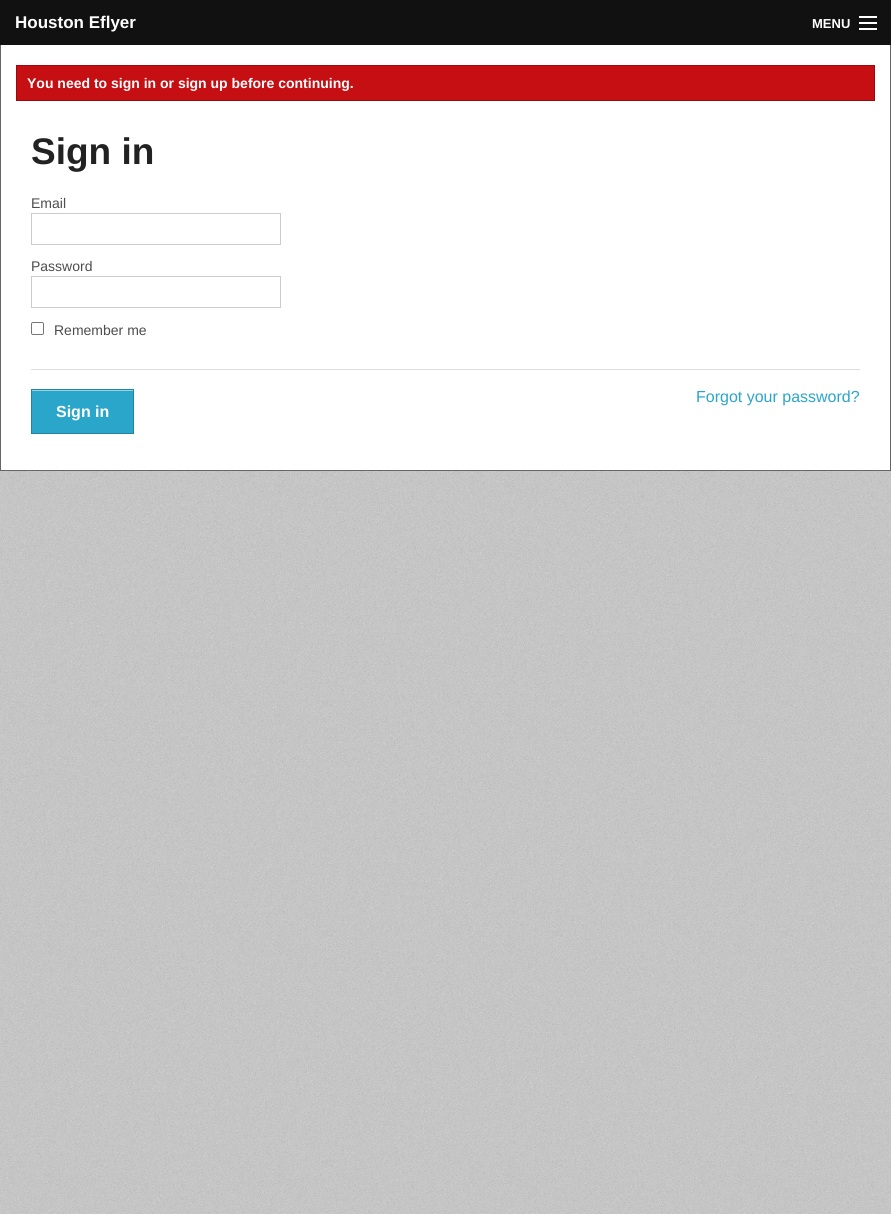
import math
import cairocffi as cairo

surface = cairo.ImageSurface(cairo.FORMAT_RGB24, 891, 1214)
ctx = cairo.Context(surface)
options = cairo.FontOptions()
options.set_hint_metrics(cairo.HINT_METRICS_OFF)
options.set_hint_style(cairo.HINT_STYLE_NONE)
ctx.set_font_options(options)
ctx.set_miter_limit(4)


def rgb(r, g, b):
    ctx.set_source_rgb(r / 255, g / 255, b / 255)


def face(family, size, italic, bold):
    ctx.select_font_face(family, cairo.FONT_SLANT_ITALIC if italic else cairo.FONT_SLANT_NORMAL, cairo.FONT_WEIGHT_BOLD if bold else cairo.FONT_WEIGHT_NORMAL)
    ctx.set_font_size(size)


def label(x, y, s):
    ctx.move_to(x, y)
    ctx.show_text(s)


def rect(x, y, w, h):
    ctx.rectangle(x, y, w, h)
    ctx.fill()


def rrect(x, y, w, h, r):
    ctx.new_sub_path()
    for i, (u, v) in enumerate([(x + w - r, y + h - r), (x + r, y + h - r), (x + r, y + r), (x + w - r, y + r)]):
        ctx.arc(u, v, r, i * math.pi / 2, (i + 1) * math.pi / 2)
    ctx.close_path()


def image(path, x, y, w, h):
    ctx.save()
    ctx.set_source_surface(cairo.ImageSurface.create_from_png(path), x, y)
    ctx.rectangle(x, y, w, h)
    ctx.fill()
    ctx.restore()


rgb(255, 255, 255)
ctx.paint()
image('image0.png', 0, 471, 891, 743)
rgb(17, 17, 17)
rect(0, 0, 891, 45)
face('Liberation Sans', 17, 0, 1)
rgb(255, 255, 255)
label(15, 28, 'Houston Eflyer')
rect(859, 28, 18, 2)
rect(859, 22, 18, 2)
rect(859, 16, 18, 2)
face('Liberation Sans', 13, 0, 1)
label(812, 28, 'MENU')
rgb(102, 102, 102)
rect(890, 45, 1, 426)
rect(0, 470, 891, 1)
rect(0, 45, 1, 426)
rgb(198, 15, 19)
ctx.rectangle(16.5, 65.5, 858, 35)
ctx.fill_preserve()
rgb(151, 11, 14)
ctx.set_line_width(1)
ctx.stroke()
face('Liberation Sans', 14, 0, 1)
rgb(255, 255, 255)
label(27, 88, 'You need to sign in or sign up before continuing.')
face('Liberation Sans', 37, 0, 1)
rgb(34, 34, 34)
label(31, 164, 'Sign in')
face('Liberation Sans', 14, 0, 0)
rgb(77, 77, 77)
label(31, 208, 'Email')
ctx.rectangle(31.5, 213.5, 249, 31)
rgb(204, 204, 204)
ctx.stroke()
rgb(77, 77, 77)
label(31, 271, 'Password')
ctx.rectangle(31.5, 276.5, 249, 31)
rgb(204, 204, 204)
ctx.stroke()
rrect(31.5, 322.5, 12, 12, 1.5)
rgb(118, 118, 118)
ctx.stroke()
rgb(77, 77, 77)
label(54, 335, 'Remember me')
rgb(221, 221, 221)
rect(31, 369, 829, 1)
face('Liberation Sans', 16, 0, 0)
rgb(43, 166, 203)
label(696, 402, 'Forgot your password?')
rect(32, 391, 101, 42)
rgb(149, 211, 229)
rect(32, 390, 101, 1)
ctx.rectangle(31.5, 389.5, 102, 44)
rgb(34, 132, 161)
ctx.stroke()
face('Liberation Sans', 16, 0, 1)
rgb(255, 255, 255)
label(56, 417, 'Sign in')
surface.write_to_png('render.png')
